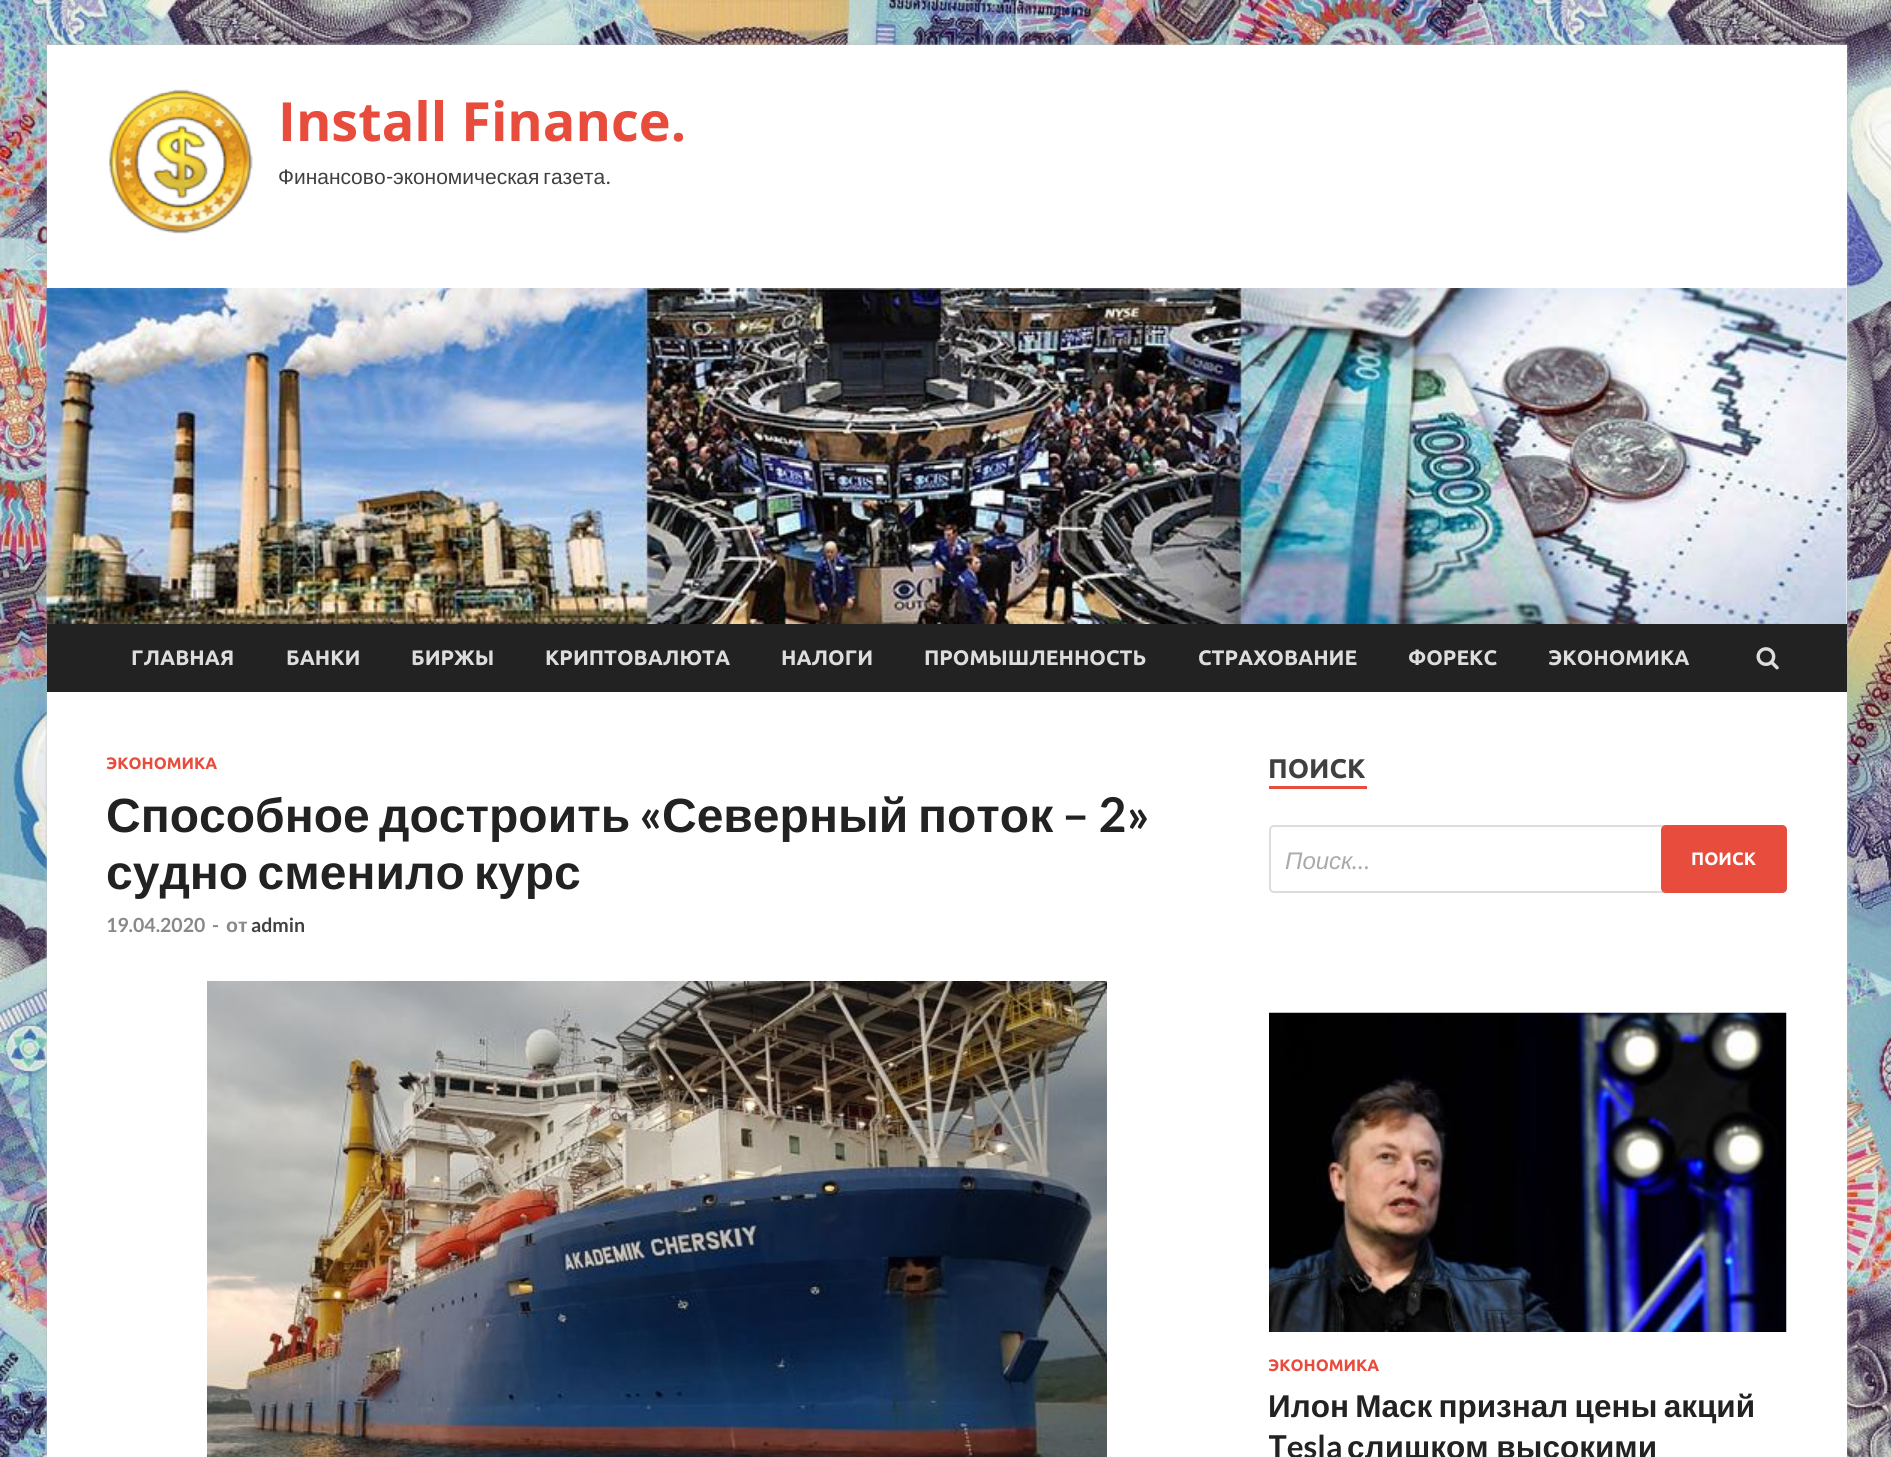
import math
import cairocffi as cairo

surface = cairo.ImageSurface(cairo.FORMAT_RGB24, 1891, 1457)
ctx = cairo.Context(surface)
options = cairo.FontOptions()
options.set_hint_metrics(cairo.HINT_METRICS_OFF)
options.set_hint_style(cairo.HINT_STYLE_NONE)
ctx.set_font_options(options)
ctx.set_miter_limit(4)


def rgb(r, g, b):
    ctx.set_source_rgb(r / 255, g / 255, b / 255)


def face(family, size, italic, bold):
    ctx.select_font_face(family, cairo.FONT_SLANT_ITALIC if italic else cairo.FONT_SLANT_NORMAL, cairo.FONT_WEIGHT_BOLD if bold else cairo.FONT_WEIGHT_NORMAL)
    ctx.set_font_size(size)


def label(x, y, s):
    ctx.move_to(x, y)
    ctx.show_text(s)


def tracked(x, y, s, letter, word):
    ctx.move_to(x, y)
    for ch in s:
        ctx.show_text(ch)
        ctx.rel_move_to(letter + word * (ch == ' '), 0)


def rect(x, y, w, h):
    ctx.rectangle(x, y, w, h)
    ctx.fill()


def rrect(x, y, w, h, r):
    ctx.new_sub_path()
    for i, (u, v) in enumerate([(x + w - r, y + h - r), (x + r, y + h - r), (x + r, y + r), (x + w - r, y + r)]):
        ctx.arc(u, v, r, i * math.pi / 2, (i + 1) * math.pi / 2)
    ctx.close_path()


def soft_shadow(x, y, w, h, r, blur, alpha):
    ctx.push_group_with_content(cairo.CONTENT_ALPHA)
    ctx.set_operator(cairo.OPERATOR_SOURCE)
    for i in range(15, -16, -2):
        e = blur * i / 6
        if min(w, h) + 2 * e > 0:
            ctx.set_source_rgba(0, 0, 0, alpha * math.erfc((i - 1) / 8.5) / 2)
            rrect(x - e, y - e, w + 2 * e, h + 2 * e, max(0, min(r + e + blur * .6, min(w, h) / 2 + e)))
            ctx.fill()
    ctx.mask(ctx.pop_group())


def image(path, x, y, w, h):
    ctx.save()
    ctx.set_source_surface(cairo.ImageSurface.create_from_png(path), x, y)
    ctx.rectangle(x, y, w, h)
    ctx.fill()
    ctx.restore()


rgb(255, 255, 255)
ctx.paint()
image('image0.png', 0, 0, 1891, 1457)
rgb(187, 187, 187)
soft_shadow(47, 45, 1800, 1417, 0, 1.5, 1)
rgb(255, 255, 255)
rect(47, 45, 1800, 1412)
image('image1.png', 109, 89, 144, 145)
face('Open Sans', 54, 0, 1)
rgb(231, 76, 60)
label(278, 141, 'Install Finance.')
face('Liberation Sans', 21, 0, 0)
rgb(64, 64, 64)
label(278, 184, 'Финансово')
face('Lato', 21, 0, 0)
label(386, 184, '-')
face('Liberation Sans', 21, 0, 0)
tracked(393, 184, 'экономическая газета', 0, -2)
face('Lato', 21, 0, 0)
label(606, 184, '.')
image('image2.png', 46, 288, 1801, 336)
rgb(34, 34, 34)
rect(47, 624, 1800, 68)
face('Ubuntu', 21, 0, 1)
rgb(221, 221, 221)
label(131, 665, 'ГЛАВНАЯ')
label(286, 665, 'БАНКИ')
label(411, 665, 'БИРЖЫ')
label(545, 665, 'КРИПТОВАЛЮТА')
label(781, 665, 'НАЛОГИ')
label(924, 665, 'ПРОМЫШЛЕННОСТЬ')
label(1198, 665, 'СТРАХОВАНИЕ')
label(1408, 665, 'ФОРЕКС')
label(1548, 665, 'ЭКОНОМИКА')
image('image3.png', 1756, 647, 23, 23)
face('Ubuntu', 16.5, 0, 1)
rgb(231, 76, 60)
label(106, 769, 'ЭКОНОМИКА')
face('Liberation Sans', 48, 0, 1)
rgb(34, 34, 34)
label(106, 832, 'Способное')
label(379, 832, 'достроить')
face('Lato', 48, 0, 1)
label(639, 832, '«')
face('Liberation Sans', 48, 0, 1)
label(662, 832, 'Северный')
label(918, 832, 'поток')
face('Lato', 48, 0, 1)
label(1062, 832, '– 2»')
face('Liberation Sans', 48, 0, 1)
tracked(106, 889, 'судно сменило курс', 0, -4)
face('Lato', 19.5, 0, 1)
rgb(136, 136, 136)
label(106, 932, '19.04.2020')
label(212, 932, '-')
face('Liberation Sans', 19.5, 0, 1)
label(226, 932, 'от')
face('Lato', 19.5, 0, 1)
rgb(64, 64, 64)
label(251, 932, 'admin')
image('image4.png', 207, 981, 900, 476)
rgb(231, 76, 60)
rect(1269, 786, 98, 3)
face('Ubuntu', 27, 0, 1)
rgb(64, 64, 64)
label(1268, 778, 'ПОИСК')
rrect(1270, 826, 516, 66, 4)
rgb(221, 221, 221)
ctx.stroke()
face('Liberation Sans', 24, 1, 0)
rgb(170, 170, 170)
label(1285, 869, 'Поиск')
face('Lato', 24, 1, 0)
label(1352, 869, '…')
rgb(231, 76, 60)
rrect(1661, 825, 126, 68, 5)
ctx.fill()
face('Ubuntu', 18, 0, 1)
rgb(255, 255, 255)
label(1691, 865, 'ПОИСК')
image('image5.png', 1269, 1012, 518, 320)
face('Ubuntu', 16.5, 0, 1)
rgb(231, 76, 60)
label(1268, 1371, 'ЭКОНОМИКА')
face('Liberation Sans', 31.5, 0, 1)
rgb(34, 34, 34)
tracked(1268, 1417, 'Илон Маск признал цены акций', 0, -2.5)
ctx.save()
ctx.rectangle(1269, 1013, 518, 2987)
ctx.clip()
face('Lato', 31.5, 0, 1)
label(1268, 1458, 'Tesla')
ctx.restore()
tracked(1347, 1458, 'слишком высокими', 0, -1)
surface.write_to_png('render.png')
